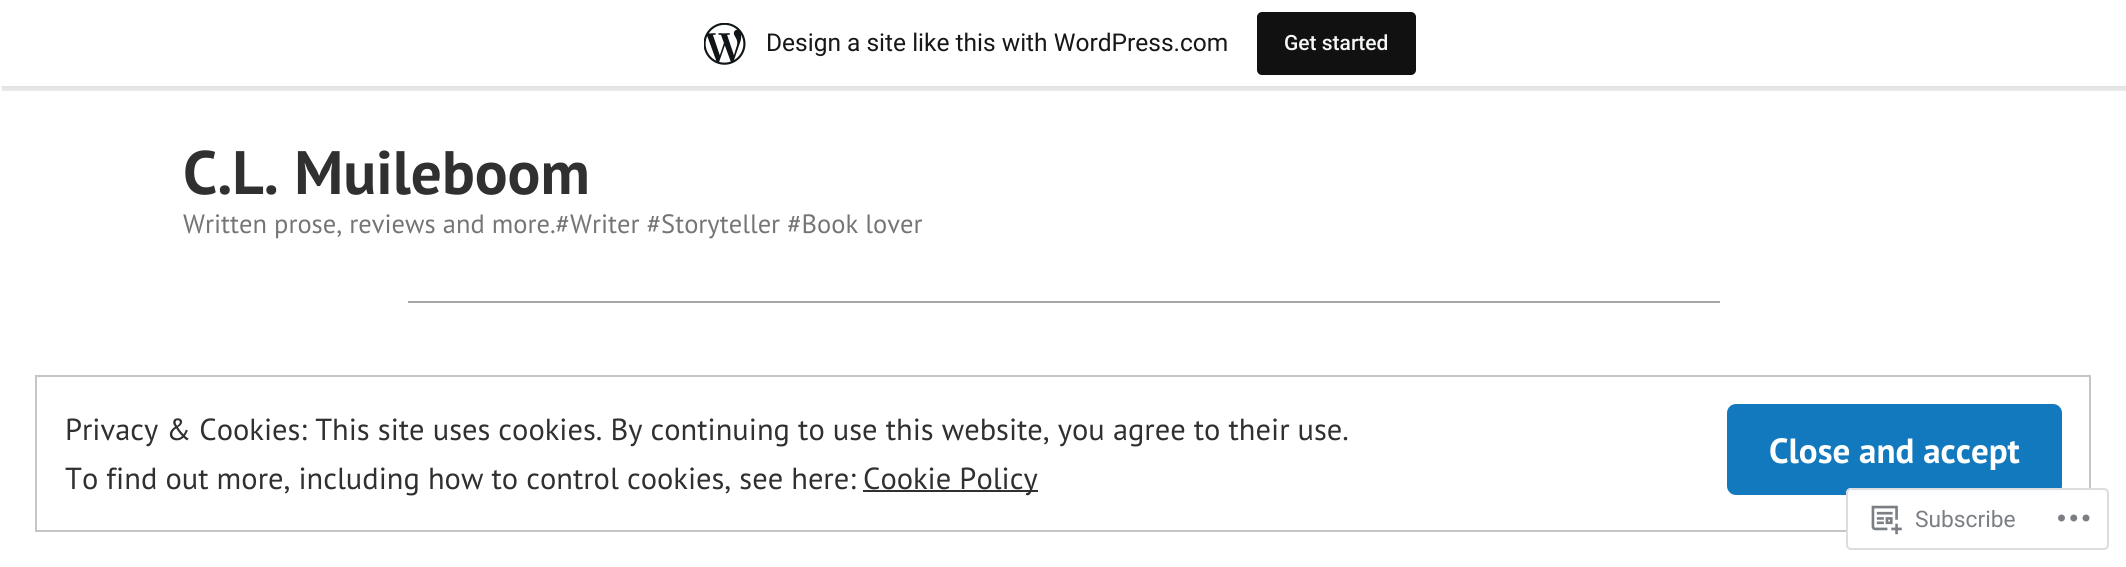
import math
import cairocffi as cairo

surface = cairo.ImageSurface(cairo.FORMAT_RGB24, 2126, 567)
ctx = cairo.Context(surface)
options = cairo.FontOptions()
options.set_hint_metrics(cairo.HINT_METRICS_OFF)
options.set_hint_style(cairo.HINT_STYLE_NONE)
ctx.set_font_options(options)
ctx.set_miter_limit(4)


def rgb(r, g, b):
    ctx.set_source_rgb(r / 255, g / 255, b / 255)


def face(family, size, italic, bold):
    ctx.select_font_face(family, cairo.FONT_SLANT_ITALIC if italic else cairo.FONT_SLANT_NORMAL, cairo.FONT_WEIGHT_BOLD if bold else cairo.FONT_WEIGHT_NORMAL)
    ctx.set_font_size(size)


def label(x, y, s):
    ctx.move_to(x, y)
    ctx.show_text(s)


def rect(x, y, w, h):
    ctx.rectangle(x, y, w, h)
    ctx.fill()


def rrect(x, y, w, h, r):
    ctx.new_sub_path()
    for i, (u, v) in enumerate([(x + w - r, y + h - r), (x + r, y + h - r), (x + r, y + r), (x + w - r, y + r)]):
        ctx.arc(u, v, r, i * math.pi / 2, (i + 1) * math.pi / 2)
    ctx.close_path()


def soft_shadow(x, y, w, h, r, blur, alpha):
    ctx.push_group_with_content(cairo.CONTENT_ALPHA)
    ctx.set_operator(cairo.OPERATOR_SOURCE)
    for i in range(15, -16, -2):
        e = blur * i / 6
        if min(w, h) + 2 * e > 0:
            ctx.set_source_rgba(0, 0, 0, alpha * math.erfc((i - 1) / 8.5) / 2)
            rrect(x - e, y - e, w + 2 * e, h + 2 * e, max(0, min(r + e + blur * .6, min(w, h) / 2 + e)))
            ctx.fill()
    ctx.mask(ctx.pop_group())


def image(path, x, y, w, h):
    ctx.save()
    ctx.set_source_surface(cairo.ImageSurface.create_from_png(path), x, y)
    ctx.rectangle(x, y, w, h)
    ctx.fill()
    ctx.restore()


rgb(255, 255, 255)
ctx.paint()
rgb(0, 0, 0)
soft_shadow(0, 2, 2126, 86, 0, 2, 0.05)
ctx.set_source_rgba(0, 0, 0, 0.08)
ctx.new_path()
ctx.move_to(2, 86)
ctx.line_to(2, 91)
ctx.line_to(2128, 91)
ctx.line_to(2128, 5)
ctx.line_to(2126, 5)
ctx.line_to(2126, 86)
ctx.close_path()
ctx.fill()
rgb(255, 255, 255)
rect(0, 0, 2126, 86)
image('image0.png', 704, 23, 42, 42)
face('Roboto', 24.5, 0, 0)
rgb(23, 23, 23)
label(766, 51, 'Design a site like this with WordPress.com')
rgb(17, 17, 17)
rrect(1257, 12, 159, 63, 5)
ctx.fill()
face('Roboto Medium', 21, 0, 0)
rgb(246, 247, 247)
label(1284, 50, 'Get started')
face('PT Sans', 61.25, 0, 1)
rgb(48, 48, 48)
label(183, 194, 'C.L. Muileboom')
face('PT Sans', 26.5, 0, 0)
rgb(117, 117, 117)
label(183, 233, 'Written prose, reviews and more.#Writer #Storyteller #Book lover')
rgb(165, 165, 165)
rect(408, 301, 1312, 2)
ctx.rectangle(36, 376, 2054, 155)
rgb(197, 197, 197)
ctx.stroke()
face('PT Sans', 30.45, 0, 0)
rgb(48, 48, 48)
label(65, 440, 'Privacy & Cookies: This site uses cookies. By continuing to use this website, you agree to their use.')
rgb(18, 121, 190)
rrect(1727, 404, 335, 91, 9)
ctx.fill()
face('PT Sans', 35, 0, 1)
rgb(255, 255, 255)
label(1769, 463, 'Close and accept')
face('PT Sans', 30.45, 0, 0)
rgb(48, 48, 48)
label(65, 489, 'To find out more, including how to control cookies, see here:')
rect(863, 490, 175, 2)
label(863, 489, 'Cookie Policy')
ctx.set_source_rgba(1, 1, 1, 0.98)
rrect(1846, 488, 263, 62, 5)
ctx.fill()
rrect(1847, 489, 261, 60, 4)
ctx.set_source_rgba(0.863, 0.863, 0.871, 0.98)
ctx.stroke()
image('image1.png', 1871, 505, 31, 30)
face('Roboto', 22.75, 0, 0)
rgb(123, 127, 133)
label(1915, 527, 'Subscribe')
image('image2.png', 2058, 514, 32, 8)
surface.write_to_png('render.png')
